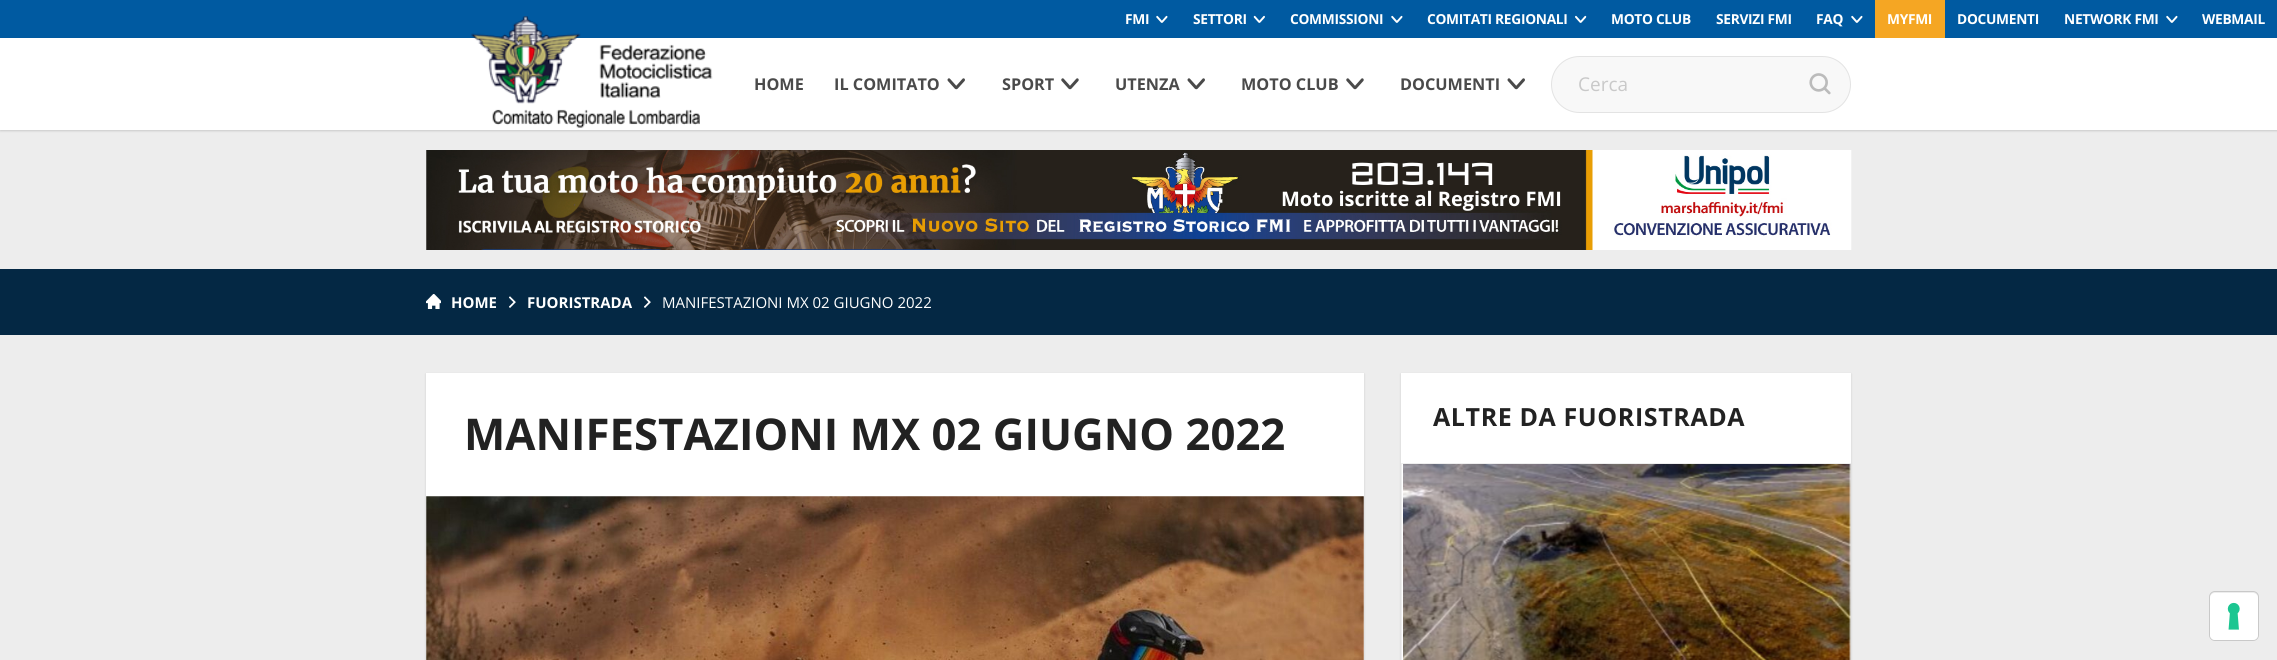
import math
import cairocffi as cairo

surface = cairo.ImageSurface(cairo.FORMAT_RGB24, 2277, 660)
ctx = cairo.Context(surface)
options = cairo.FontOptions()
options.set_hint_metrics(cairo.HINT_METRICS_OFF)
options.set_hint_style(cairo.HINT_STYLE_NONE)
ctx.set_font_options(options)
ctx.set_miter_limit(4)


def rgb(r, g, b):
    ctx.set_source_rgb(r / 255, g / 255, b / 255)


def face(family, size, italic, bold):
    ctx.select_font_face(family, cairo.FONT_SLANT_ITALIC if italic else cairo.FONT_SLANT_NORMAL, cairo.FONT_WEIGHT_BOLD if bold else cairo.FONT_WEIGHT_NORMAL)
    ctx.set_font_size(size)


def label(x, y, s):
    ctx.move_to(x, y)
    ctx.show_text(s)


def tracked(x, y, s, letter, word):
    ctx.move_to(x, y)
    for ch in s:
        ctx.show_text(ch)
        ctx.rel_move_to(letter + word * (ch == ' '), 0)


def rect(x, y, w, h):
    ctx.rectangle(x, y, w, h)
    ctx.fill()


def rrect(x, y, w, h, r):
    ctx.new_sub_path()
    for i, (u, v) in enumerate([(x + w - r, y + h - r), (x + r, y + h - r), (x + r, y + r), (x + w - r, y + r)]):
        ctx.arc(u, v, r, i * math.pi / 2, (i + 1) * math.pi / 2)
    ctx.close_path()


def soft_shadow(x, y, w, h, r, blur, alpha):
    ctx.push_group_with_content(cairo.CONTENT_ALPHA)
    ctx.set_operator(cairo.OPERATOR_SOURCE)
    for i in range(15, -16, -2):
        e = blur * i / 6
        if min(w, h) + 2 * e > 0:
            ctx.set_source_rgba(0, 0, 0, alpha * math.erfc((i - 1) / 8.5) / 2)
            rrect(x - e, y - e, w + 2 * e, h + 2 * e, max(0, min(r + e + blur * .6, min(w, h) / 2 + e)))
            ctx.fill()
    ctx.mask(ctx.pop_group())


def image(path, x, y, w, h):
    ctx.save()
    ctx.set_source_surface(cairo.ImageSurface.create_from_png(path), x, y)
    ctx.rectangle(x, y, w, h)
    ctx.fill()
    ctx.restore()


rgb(237, 237, 237)
ctx.paint()
rgb(0, 90, 161)
rect(0, 0, 2277, 38)
face('Open Sans', 13.75, 0, 1)
rgb(255, 255, 255)
tracked(1125, 24, 'FMI', -0.3, 0)
image('image0.png', 1156, 15, 12, 8)
tracked(1193, 24, 'SETTORI', -0.3, 0)
image('image1.png', 1253, 15, 12, 8)
tracked(1290, 24, 'COMMISSIONI', -0.3, 0)
image('image0.png', 1391, 15, 12, 8)
tracked(1427, 24, 'COMITATI REGIONALI', -0.3, 0)
image('image2.png', 1575, 15, 12, 8)
tracked(1611, 24, 'MOTO CLUB', -0.3, 0)
tracked(1716, 24, 'SERVIZI FMI', -0.3, 0)
tracked(1816, 24, 'FAQ', -0.3, 0)
image('image0.png', 1851, 15, 12, 8)
rgb(0, 0, 0)
soft_shadow(0, 39, 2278, 92, 0, 1, 0.15)
rgb(245, 166, 35)
rect(1875, 0, 70, 38)
rgb(255, 255, 255)
tracked(1887, 24, 'MYFMI', -0.3, 0)
tracked(1957, 24, 'DOCUMENTI', -0.3, 0)
tracked(2064, 24, 'NETWORK FMI', -0.3, 0)
image('image0.png', 2166, 15, 12, 8)
tracked(2202, 24, 'WEBMAIL', -0.3, 0)
rect(0, 38, 2277, 92)
image('image3.png', 471, 16, 242, 112)
face('Open Sans', 16.25, 0, 1)
rgb(74, 74, 74)
label(754, 90, 'HOME')
label(834, 90, 'IL COMITATO')
image('image4.png', 947, 78, 18, 12)
label(1002, 90, 'SPORT')
image('image5.png', 1061, 78, 18, 12)
label(1115, 90, 'UTENZA')
image('image4.png', 1187, 78, 18, 12)
label(1241, 90, 'MOTO CLUB')
image('image5.png', 1346, 78, 18, 12)
label(1400, 90, 'DOCUMENTI')
image('image4.png', 1507, 78, 18, 12)
rgb(248, 248, 248)
rrect(1551.5, 56.5, 299, 56, 28)
ctx.fill_preserve()
rgb(227, 227, 227)
ctx.set_line_width(1)
ctx.stroke()
face('Open Sans', 19, 0, 0)
rgb(201, 201, 201)
label(1578, 91, 'Cerca')
image('image6.png', 1809, 73, 22, 22)
image('image7.png', 426, 150, 1426, 100)
face('Revalia', 30, 0, 0)
rgb(255, 255, 255)
label(1349, 185, '203.147')
face('Open Sans', 20, 0, 1)
label(1281, 206, 'Moto iscritte al Registro FMI')
rgb(4, 40, 68)
rect(0, 269, 2277, 66)
image('image8.png', 426, 294, 15, 15)
face('Open Sans', 15, 0, 1)
rgb(255, 255, 255)
label(451, 308, 'HOME')
image('image9.png', 509, 296, 7, 12)
label(527, 308, 'FUORISTRADA')
image('image9.png', 644, 296, 7, 12)
face('Open Sans', 15, 0, 0)
label(662, 308, 'MANIFESTAZIONI MX 02 GIUGNO 2022')
rgb(0, 0, 0)
soft_shadow(426, 374, 938, 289, 0, 1, 0.15)
rgb(255, 255, 255)
rect(426, 373, 938, 287)
face('Open Sans', 43.75, 0, 1)
rgb(34, 34, 34)
label(464, 450, 'MANIFESTAZIONI MX 02 GIUGNO 2022')
image('image10.png', 426, 496, 938, 164)
rgb(0, 0, 0)
soft_shadow(1401, 374, 450, 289, 0, 1, 0.15)
rgb(255, 255, 255)
rect(1401, 373, 450, 287)
face('Open Sans', 25, 0, 1)
rgb(34, 34, 34)
tracked(1433, 426, 'ALTRE DA FUORISTRADA', 0.6, 0)
ctx.rectangle(1401.5, 463.5, 449, 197)
rgb(238, 238, 238)
ctx.stroke()
image('image11.png', 1403, 464, 448, 196)
rrect(2209.5, 591.5, 49, 49, 5.5)
rgb(201, 201, 201)
ctx.stroke()
rgb(255, 255, 255)
rrect(2210, 593, 48, 47, 5)
ctx.fill()
image('image12.png', 2227, 602, 13, 28)
surface.write_to_png('render.png')
